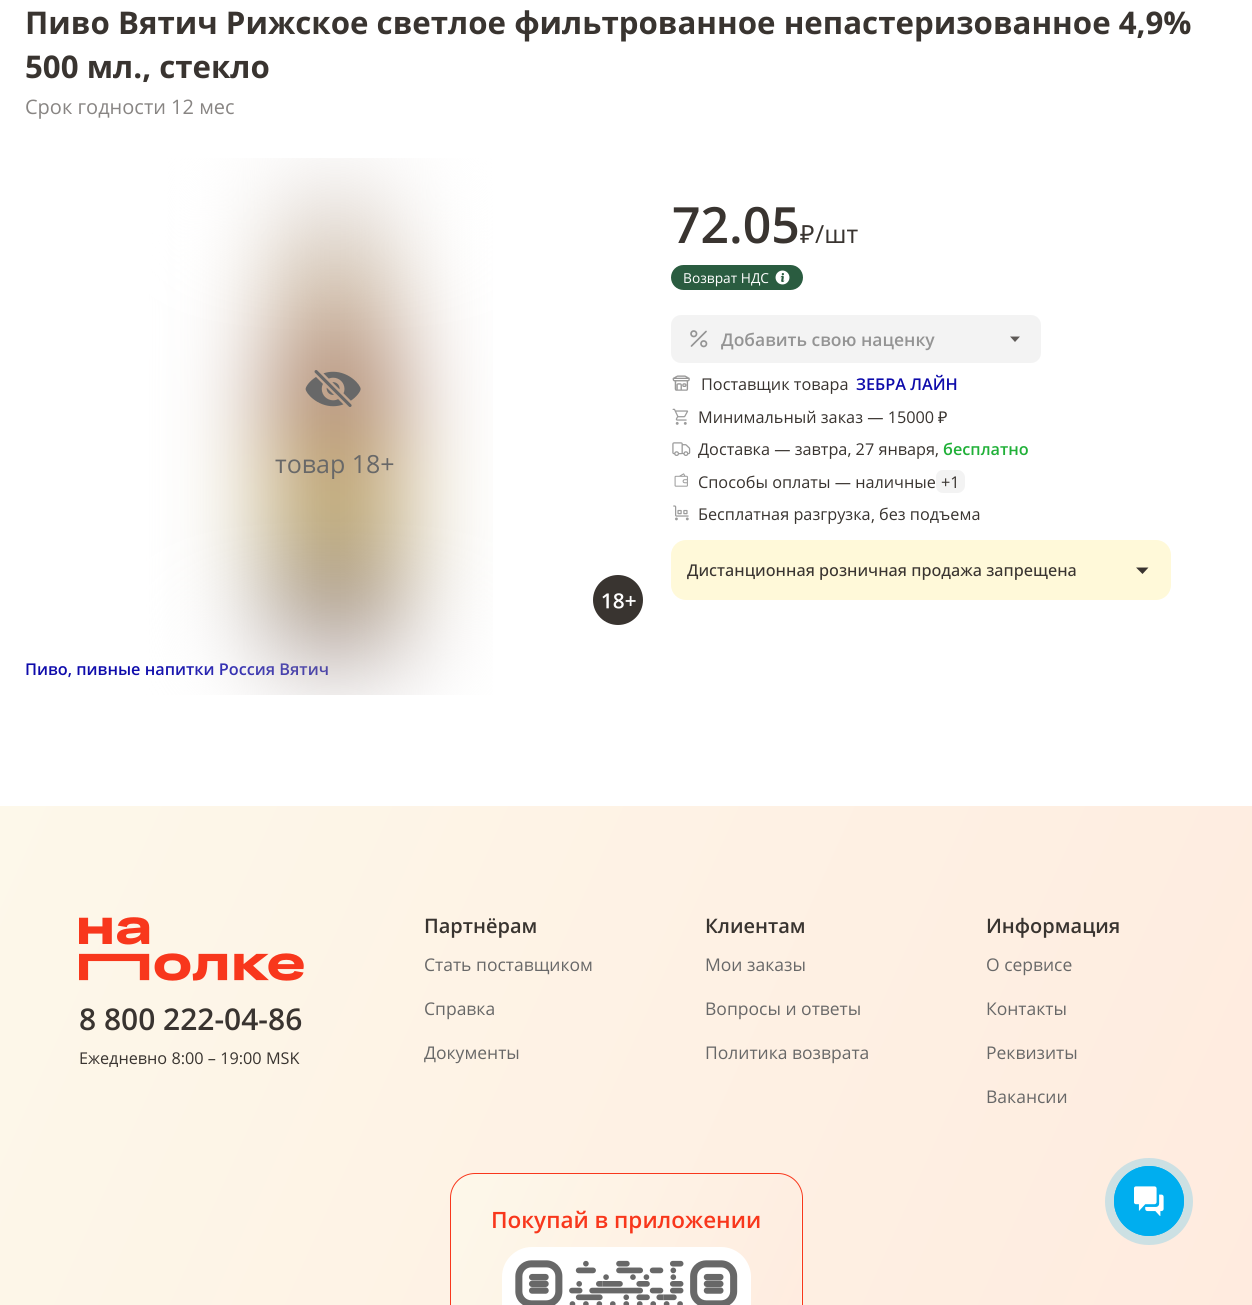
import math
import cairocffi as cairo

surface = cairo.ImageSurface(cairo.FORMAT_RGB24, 1252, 1305)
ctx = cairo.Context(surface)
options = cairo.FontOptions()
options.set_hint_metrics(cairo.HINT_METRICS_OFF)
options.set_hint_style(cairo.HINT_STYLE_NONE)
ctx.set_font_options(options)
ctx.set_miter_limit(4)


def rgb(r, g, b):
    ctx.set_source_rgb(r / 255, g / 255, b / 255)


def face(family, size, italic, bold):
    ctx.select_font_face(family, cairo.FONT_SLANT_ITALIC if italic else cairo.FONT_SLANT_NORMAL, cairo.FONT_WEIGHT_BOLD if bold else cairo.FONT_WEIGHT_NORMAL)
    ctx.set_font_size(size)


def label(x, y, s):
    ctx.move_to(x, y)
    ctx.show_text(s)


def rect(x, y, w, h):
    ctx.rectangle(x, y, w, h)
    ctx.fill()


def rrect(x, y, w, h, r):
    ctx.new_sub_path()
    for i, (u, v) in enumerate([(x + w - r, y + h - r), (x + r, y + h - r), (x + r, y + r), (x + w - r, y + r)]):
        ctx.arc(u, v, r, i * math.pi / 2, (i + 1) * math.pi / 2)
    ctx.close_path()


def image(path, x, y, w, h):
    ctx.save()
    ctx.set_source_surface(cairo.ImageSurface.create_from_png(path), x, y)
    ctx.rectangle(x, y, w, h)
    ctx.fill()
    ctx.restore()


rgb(255, 255, 255)
ctx.paint()
face('Open Sans', 31.25, 0, 1)
rgb(57, 52, 48)
label(25, 34, 'Пиво Вятич Рижское светлое фильтрованное непастеризованное 4,9%')
label(25, 78, '500 мл., стекло')
face('Open Sans', 20, 0, 0)
rgb(136, 133, 131)
label(25, 114, 'Срок годности 12 мес')
face('Open Sans SemiBold', 16.25, 0, 0)
rgb(14, 11, 171)
label(25, 675, 'Пиво, пивные напитки Россия Вятич')
image('image0.png', 146, 158, 347, 537)
image('image1.png', 305, 370, 56, 37)
face('Open Sans', 25, 0, 0)
rgb(104, 104, 104)
label(275, 473, 'товар 18+')
image('image2.png', 593, 575, 50, 50)
face('Open Sans SemiBold', 50, 0, 0)
rgb(57, 52, 48)
label(672, 243, '72.05')
face('Noto Sans', 25, 0, 0)
label(800, 243, '₽')
face('Open Sans', 25, 0, 0)
label(815, 243, '/шт')
rgb(42, 92, 64)
rrect(671, 265, 132, 25, 12.5)
ctx.fill()
face('Open Sans', 13.75, 0, 0)
rgb(255, 255, 255)
label(683, 283, 'Возврат НДС')
image('image3.png', 775, 270, 15, 15)
rgb(243, 243, 243)
rrect(671, 315, 370, 48, 10)
ctx.fill()
image('image4.png', 690, 330, 18, 18)
face('Open Sans SemiBold', 17.5, 0, 0)
rgb(148, 148, 148)
label(721, 346, 'Добавить свою наценку')
rgb(94, 90, 87)
ctx.new_path()
ctx.move_to(1010, 336.5)
ctx.line_to(1015, 342)
ctx.line_to(1020, 336.5)
ctx.close_path()
ctx.fill()
image('image5.png', 672, 375, 18, 16)
face('Open Sans', 16.25, 0, 0)
rgb(57, 52, 48)
label(701, 390, 'Поставщик товара')
face('Open Sans SemiBold', 16.25, 0, 0)
rgb(14, 11, 171)
label(856, 390, 'ЗЕБРА ЛАЙН')
image('image6.png', 672, 408, 17, 17)
face('Open Sans', 16.25, 0, 0)
rgb(57, 52, 48)
label(698, 423, 'Минимальный заказ — 15000')
face('Noto Sans', 16.25, 0, 0)
label(938, 423, '₽')
image('image7.png', 672, 442, 19, 14)
face('Open Sans', 16.25, 0, 0)
label(698, 455, 'Доставка — завтра, 27 января,')
face('Open Sans SemiBold', 16.25, 0, 0)
rgb(32, 176, 56)
label(943, 455, 'бесплатно')
image('image8.png', 674, 473, 14, 14)
face('Open Sans', 16.25, 0, 0)
rgb(57, 52, 48)
label(698, 488, 'Способы оплаты — наличные')
rgb(243, 243, 243)
ctx.new_path()
ctx.move_to(943, 470)
ctx.line_to(950, 470)
ctx.line_to(950, 493)
ctx.line_to(943, 493)
ctx.curve_to(939, 493, 936, 490, 936, 486)
ctx.line_to(936, 477)
ctx.curve_to(936, 473, 939, 470, 943, 470)
ctx.close_path()
ctx.fill()
ctx.new_path()
ctx.move_to(950, 470)
ctx.line_to(957.5, 470)
ctx.curve_to(961.5, 470, 965, 473.5, 965, 477.5)
ctx.line_to(965, 485.5)
ctx.curve_to(965, 489.5, 961.5, 493, 957.5, 493)
ctx.line_to(950, 493)
ctx.close_path()
ctx.fill()
rgb(57, 52, 48)
label(941, 488, '+1')
image('image9.png', 673, 505, 16, 16)
label(698, 520, 'Бесплатная разгрузка')
label(871, 521, ',')
label(879, 520, 'без подъема')
rgb(255, 249, 217)
rrect(671, 540, 500, 60, 15)
ctx.fill()
face('Open Sans Medium', 16.25, 0, 0)
rgb(57, 52, 48)
label(687, 576, 'Дистанционная розничная продажа запрещена')
ctx.new_path()
ctx.move_to(1136, 567.5)
ctx.line_to(1142.5, 574)
ctx.line_to(1148.5, 567.5)
ctx.close_path()
ctx.fill()
gradient = cairo.LinearGradient(-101, 976, 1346, 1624)
gradient.add_color_stop_rgba(0, 0.992, 0.973, 0.918, 1)
gradient.add_color_stop_rgba(1, 1, 0.914, 0.867, 1)
ctx.set_source(gradient)
rect(0, 806, 1252, 499)
image('image10.png', 79, 917, 225, 64)
face('Open Sans SemiBold', 30, 0, 0)
rgb(57, 52, 48)
label(79, 1030, '8 800 222-04-86')
face('Open Sans', 16.25, 0, 0)
label(79, 1064, 'Ежедневно 8:00 – 19:00 MSK')
face('Open Sans SemiBold', 20, 0, 0)
label(424, 933, 'Партнёрам')
face('Open Sans', 17.5, 0, 0)
rgb(104, 104, 104)
label(424, 971, 'Стать поставщиком')
label(424, 1015, 'Справка')
label(424, 1059, 'Документы')
face('Open Sans SemiBold', 20, 0, 0)
rgb(57, 52, 48)
label(705, 933, 'Клиентам')
face('Open Sans', 17.5, 0, 0)
rgb(104, 104, 104)
label(705, 971, 'Мои заказы')
label(705, 1015, 'Вопросы и ответы')
label(705, 1059, 'Политика возврата')
face('Open Sans SemiBold', 20, 0, 0)
rgb(57, 52, 48)
label(986, 933, 'Информация')
face('Open Sans', 17.5, 0, 0)
rgb(104, 104, 104)
label(986, 971, 'О сервисе')
label(986, 1015, 'Контакты')
label(986, 1059, 'Реквизиты')
label(986, 1103, 'Вакансии')
ctx.save()
rrect(450, 1173, 353, 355, 25)
ctx.clip()
gradient = cairo.LinearGradient(408, 1252, 842, 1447)
gradient.add_color_stop_rgba(0, 0.992, 0.973, 0.918, 1)
gradient.add_color_stop_rgba(1, 1, 0.914, 0.867, 1)
ctx.set_source(gradient)
rect(451, 1174, 350, 131)
gradient = cairo.LinearGradient(758, 1252, 1192, 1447)
gradient.add_color_stop_rgba(0, 0.992, 0.973, 0.918, 1)
gradient.add_color_stop_rgba(1, 1, 0.914, 0.867, 1)
ctx.set_source(gradient)
rect(801, 1188, 2, 117)
ctx.restore()
rrect(450.5, 1173.5, 352, 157, 24.5)
rgb(248, 55, 28)
ctx.set_line_width(1)
ctx.stroke()
face('Open Sans SemiBold', 22.5, 0, 0)
label(491, 1228, 'Покупай в приложении')
image('image11.png', 502, 1247, 249, 58)
rgb(204, 224, 227)
rrect(1105, 1158, 88, 87, 43.5)
ctx.fill()
ctx.arc(1149, 1201, 34.5, 0, 2 * math.pi)
rgb(0, 174, 239)
ctx.stroke()
ctx.arc(1149, 1201, 35, 0, 2 * math.pi)
ctx.fill()
image('image12.png', 1134, 1186, 30, 30)
surface.write_to_png('render.png')
